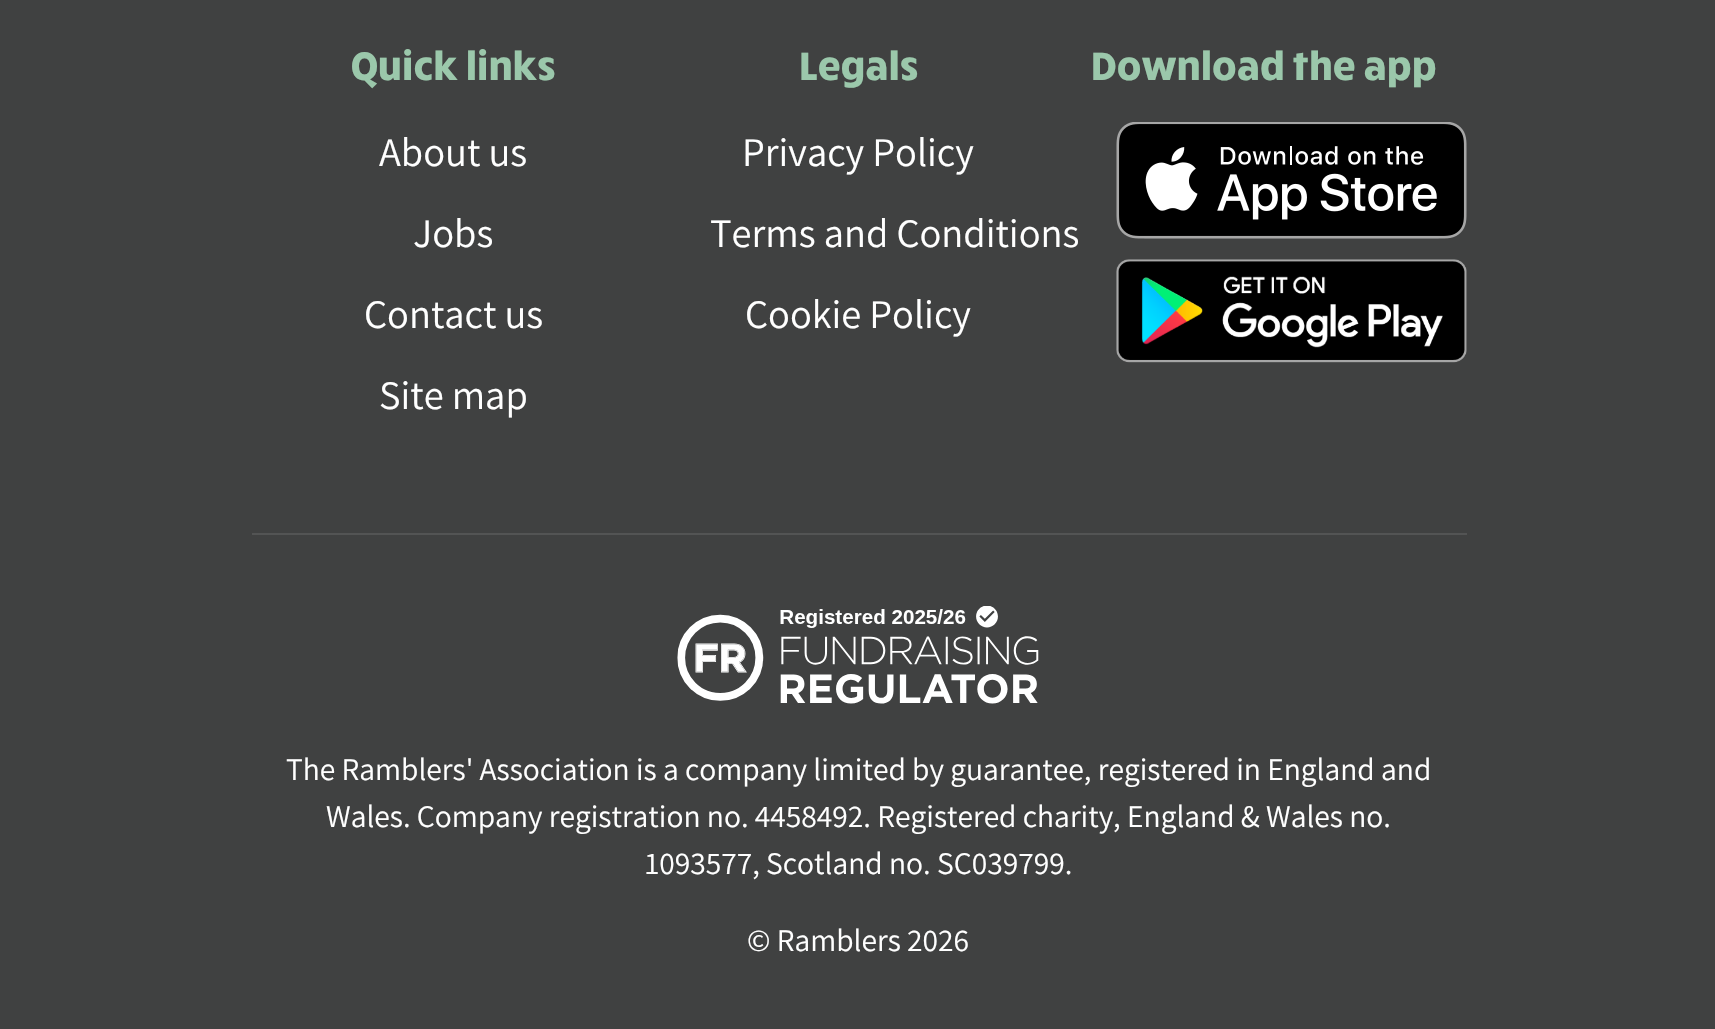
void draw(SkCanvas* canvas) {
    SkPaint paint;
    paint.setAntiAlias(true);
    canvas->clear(0xFF404141);
    SkFont font1(fontMgr->matchFamilyStyle("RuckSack", SkFontStyle::Bold()), 40.5f);
    font1.setSubpixel(true);
    paint.setColor(0xFF9BC8AB);
    canvas->drawString("Quick links", 351, 80, font1, paint);
    SkFont font2(fontMgr->matchFamilyStyle("Assistant", SkFontStyle(200, SkFontStyle::kNormal_Width, SkFontStyle::kUpright_Slant)), 40.5f);
    font2.setSubpixel(true);
    paint.setColor(0xFFFFFFFF);
    canvas->drawString("About us", 379, 166, font2, paint);
    canvas->drawString("Jobs", 413, 247, font2, paint);
    canvas->drawString("Contact us", 364, 328, font2, paint);
    canvas->drawString("Site map", 379, 409, font2, paint);
    paint.setColor(0xFF9BC8AB);
    canvas->drawString("Legals", 799, 80, font1, paint);
    paint.setColor(0xFFFFFFFF);
    canvas->drawString("Privacy Policy", 742, 166, font2, paint);
    canvas->drawString("Terms and Conditions", 710, 247, font2, paint);
    canvas->drawString("Cookie Policy", 745, 328, font2, paint);
    paint.setColor(0xFF9BC8AB);
    canvas->drawString("Download the app", 1091, 80, font1, paint);
    canvas->drawImageRect(SkImages::DeferredFromEncodedData(SkData::MakeFromFileName("img1.png")), SkRect::MakeXYWH(1116, 122, 351, 117), SkSamplingOptions());
    canvas->drawImageRect(SkImages::DeferredFromEncodedData(SkData::MakeFromFileName("img2.png")), SkRect::MakeXYWH(1116, 259, 351, 104), SkSamplingOptions());
    paint.setColor(0xFF535454);
    canvas->drawRect(SkRect::MakeXYWH(252, 533, 1215, 2), paint);
    canvas->drawImageRect(SkImages::DeferredFromEncodedData(SkData::MakeFromFileName("img3.png")), SkRect::MakeXYWH(677, 606, 362, 98), SkSamplingOptions());
    SkFont font3(fontMgr->matchFamilyStyle("Assistant", SkFontStyle(200, SkFontStyle::kNormal_Width, SkFontStyle::kUpright_Slant)), 31.5f);
    font3.setSubpixel(true);
    paint.setColor(0xFFFFFFFF);
    canvas->drawString("The Ramblers' Association is a company limited by guarantee, registered in England and", 286, 780, font3, paint);
    canvas->drawString("Wales. Company registration no. 4458492. Registered charity, England & Wales no.", 326, 827, font3, paint);
    canvas->drawString("1093577, Scotland no. SC039799.", 645, 874, font3, paint);
    canvas->drawString("© Ramblers 2026", 747, 951, font3, paint);
}
